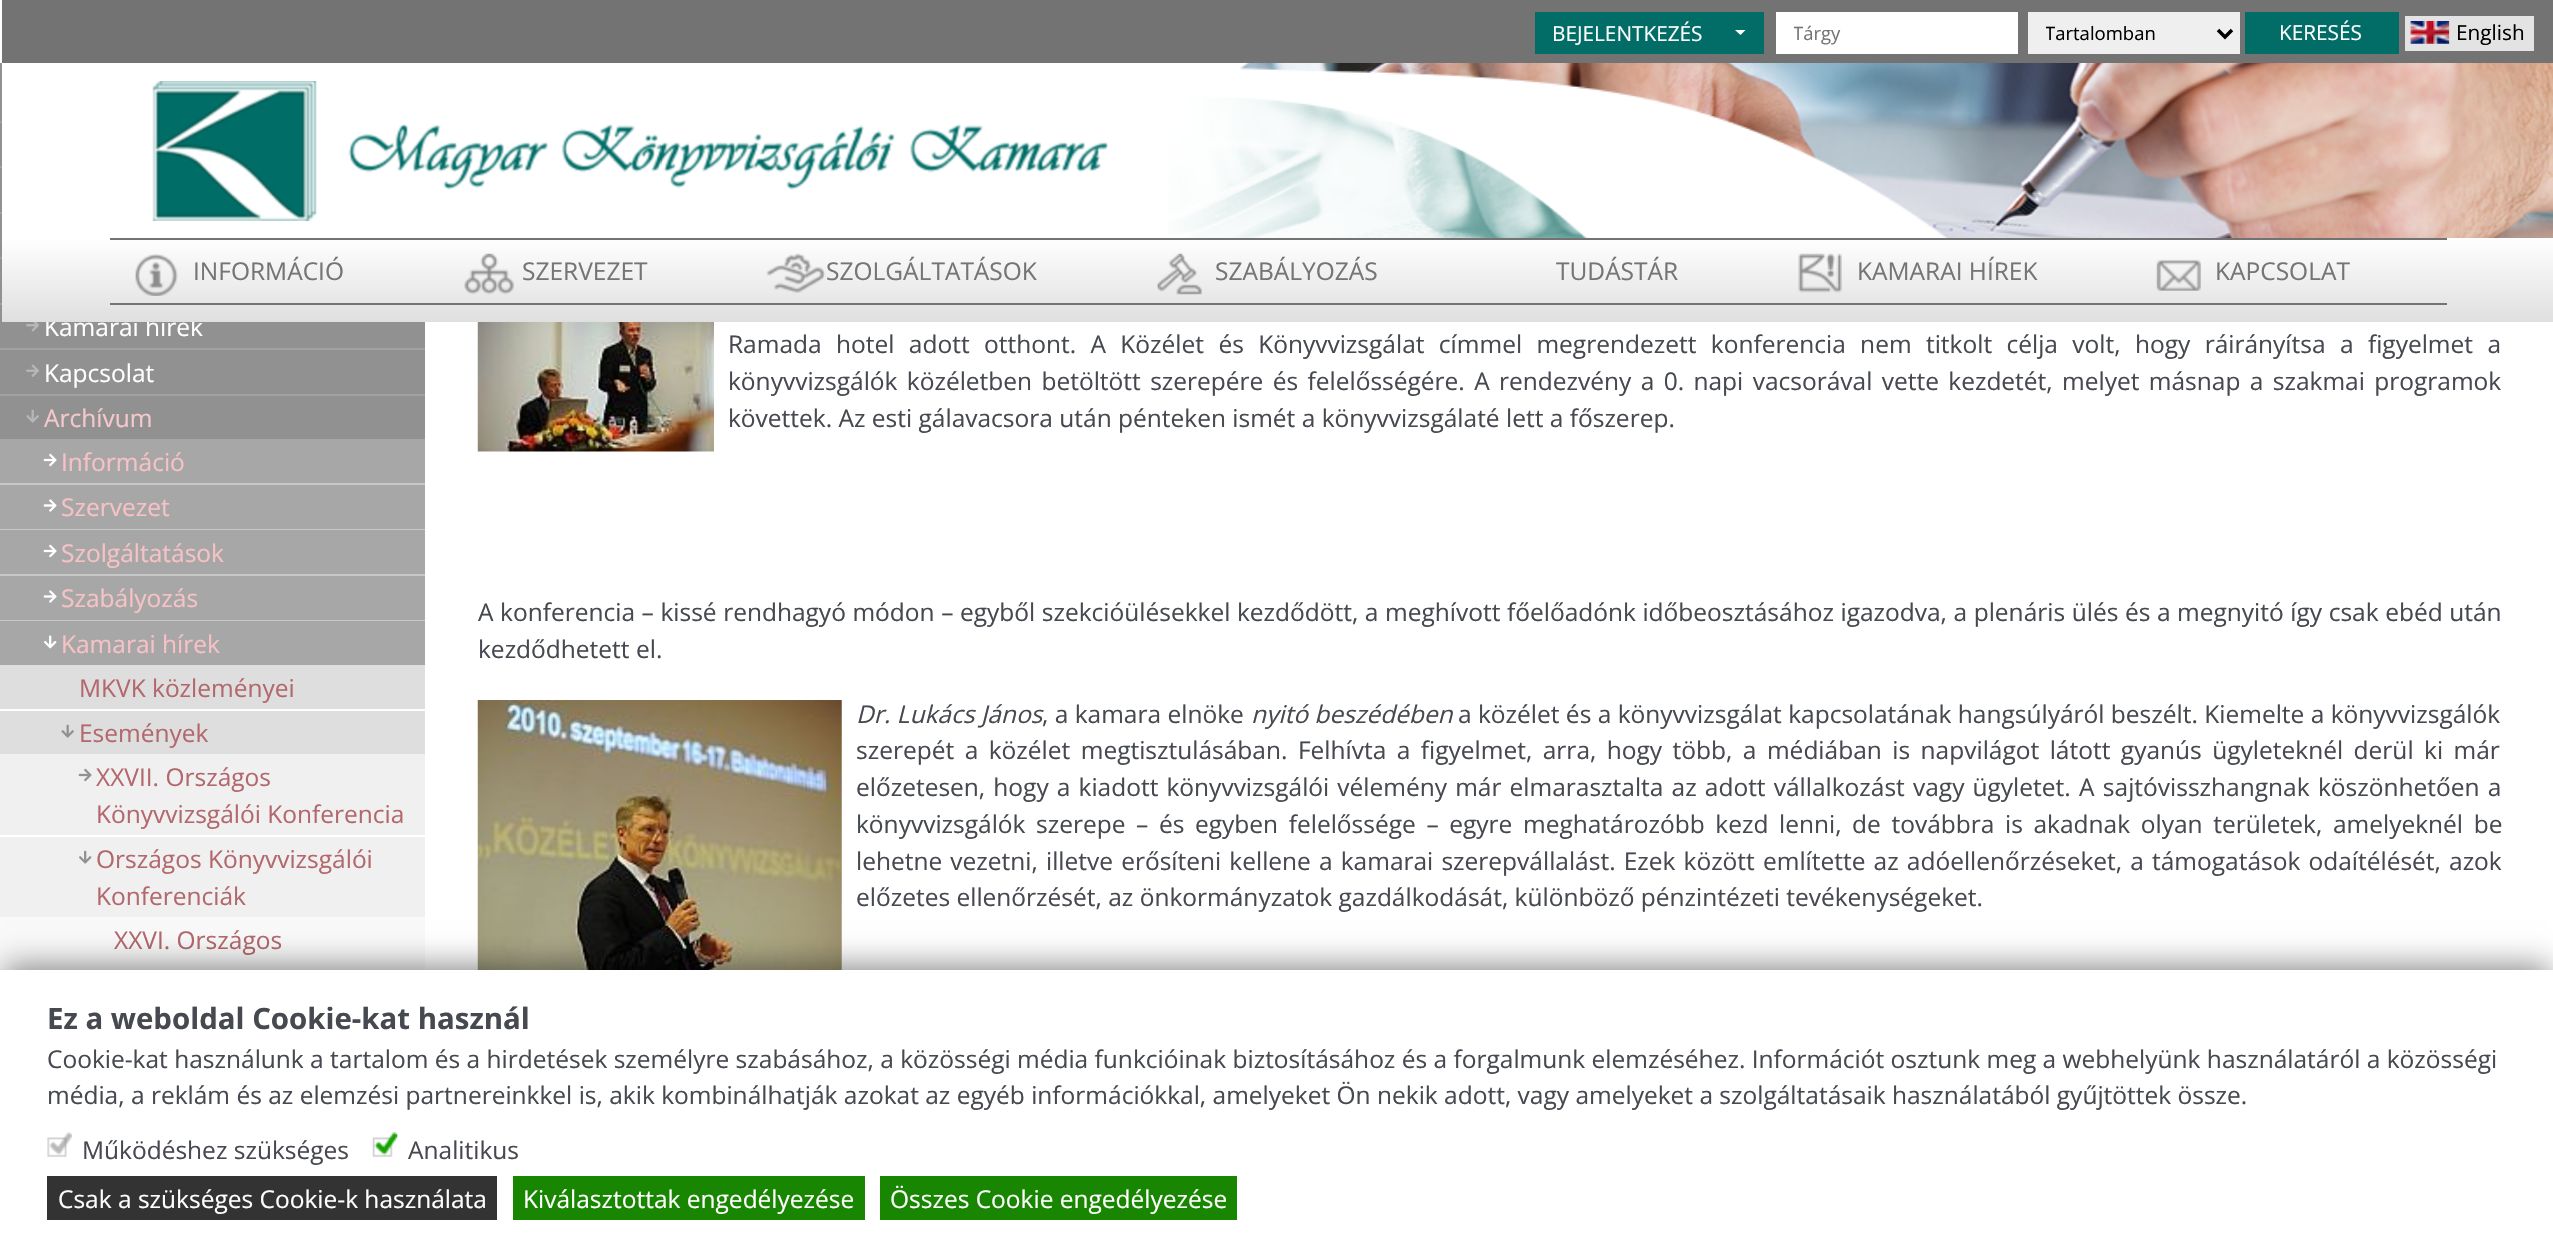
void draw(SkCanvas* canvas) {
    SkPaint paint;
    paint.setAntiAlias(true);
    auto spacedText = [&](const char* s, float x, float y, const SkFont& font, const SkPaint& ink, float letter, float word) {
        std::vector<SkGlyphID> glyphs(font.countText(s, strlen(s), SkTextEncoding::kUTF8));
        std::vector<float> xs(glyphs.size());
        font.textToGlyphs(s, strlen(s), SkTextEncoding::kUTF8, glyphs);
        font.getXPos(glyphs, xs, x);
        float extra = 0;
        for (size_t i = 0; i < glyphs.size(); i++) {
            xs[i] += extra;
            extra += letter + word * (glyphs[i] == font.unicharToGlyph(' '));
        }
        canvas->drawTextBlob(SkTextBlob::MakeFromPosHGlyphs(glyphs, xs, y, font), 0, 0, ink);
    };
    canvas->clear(0xFFFFFFFF);
    paint.setColor(0xFF919191);
    canvas->drawRect(SkRect::MakeXYWH(0, 63, 425, 376), paint);
    paint.setColor(0xFFFFFFFF);
    canvas->drawRect(SkRect::MakeXYWH(2, 63, 423, 175), paint);
    paint.setColor(0xFF737373);
    canvas->drawRect(SkRect::MakeXYWH(2, 0, 2551, 63), paint);
    paint.setColor(0xFF016D66);
    canvas->drawRect(SkRect::MakeXYWH(1535, 12, 229, 42), paint);
    SkFont font1(fontMgr->matchFamilyStyle("Open Sans", SkFontStyle::Normal()), 20.75f);
    font1.setSubpixel(true);
    paint.setColor(0xFFFFFFFF);
    canvas->drawString("BEJELENTKEZÉS", 1552, 41, font1, paint);
    canvas->drawPath(SkPathBuilder().moveTo(1735, 30).lineTo(1745.5f, 30).lineTo(1740.5f, 35).close().detach(), paint);
    canvas->drawRect(SkRect::MakeXYWH(1776, 12, 242, 42), paint);
    canvas->save();
    canvas->clipRect(SkRect::MakeXYWH(1794, 21, 206, 25));
    SkFont font2(fontMgr->matchFamilyStyle("Open Sans", SkFontStyle::Normal()), 18.5f);
    font2.setSubpixel(true);
    paint.setColor(0xFF757575);
    canvas->drawString("Tárgy", 1793, 40, font2, paint);
    canvas->restore();
    paint.setColor(0xFFEFEFEF);
    canvas->drawRect(SkRect::MakeXYWH(2028, 12, 212, 42), paint);
    paint.setStyle(SkPaint::kStroke_Style);
    paint.setStrokeWidth(3.5f);
    paint.setColor(0xFF000000);
    canvas->drawPath(SkPathBuilder().moveTo(2218, 30).lineTo(2225, 37).lineTo(2232, 30).detach(), paint);
    canvas->save();
    canvas->clipRect(SkRect::MakeXYWH(2046, 19, 156, 28));
    paint.setStyle(SkPaint::kFill_Style);
    canvas->drawString("Tartalomban", 2045, 40, font2, paint);
    canvas->restore();
    paint.setColor(0xFF016D66);
    canvas->drawRect(SkRect::MakeXYWH(2245, 12, 154, 42), paint);
    paint.setColor(0xFFFFFFFF);
    canvas->drawString("KERESÉS", 2279, 40, font1, paint);
    paint.setColor(0xFFE3E3E3);
    canvas->drawRect(SkRect::MakeXYWH(2405, 16, 129, 35), paint);
    canvas->drawImageRect(SkImages::DeferredFromEncodedData(SkData::MakeFromFileName("img1.png")), SkRect::MakeXYWH(2410, 21, 40, 23), SkSamplingOptions());
    paint.setColor(0xFF000000);
    canvas->drawString("English", 2456, 40, font1, paint);
    canvas->drawImageRect(SkImages::DeferredFromEncodedData(SkData::MakeFromFileName("img2.png")), SkRect::MakeXYWH(1168, 63, 1385, 175), SkSamplingOptions());
    canvas->drawImageRect(SkImages::DeferredFromEncodedData(SkData::MakeFromFileName("img3.png")), SkRect::MakeXYWH(152, 81, 956, 140), SkSamplingOptions());
    SkFont font3(fontMgr->matchFamilyStyle("Open Sans", SkFontStyle::Normal()), 24.5f);
    font3.setSubpixel(true);
    paint.setColor(0xFFFFFFFF);
    canvas->drawString("Kamarai hírek", 44, 336, font3, paint);
    {
        const SkColor colors[] = {0xFFFFFFFF, 0xFFDFDFDF};
        const float stops[] = {0, 1};
        const SkPoint ends[] = {{1278, 238}, {1278, 322}};
        paint.setShader(SkGradientShader::MakeLinear(ends, colors, stops, 2, SkTileMode::kClamp));
        paint.setAlpha(255);
    }
    canvas->drawRect(SkRect::MakeXYWH(2, 238, 2551, 84), paint);
    paint.setShader(nullptr);
    paint.setColor(0xFF737373);
    canvas->drawRect(SkRect::MakeXYWH(110, 238, 2337, 2), paint);
    canvas->drawRect(SkRect::MakeXYWH(110, 303, 2337, 2), paint);
    canvas->drawImageRect(SkImages::DeferredFromEncodedData(SkData::MakeFromFileName("img4.png")), SkRect::MakeXYWH(135, 254, 43, 42), SkSamplingOptions());
    paint.setColor(0xFF757575);
    canvas->drawString("INFORMÁCIÓ", 193, 280, font3, paint);
    canvas->drawImageRect(SkImages::DeferredFromEncodedData(SkData::MakeFromFileName("img5.png")), SkRect::MakeXYWH(464, 253, 50, 42), SkSamplingOptions());
    canvas->drawString("SZERVEZET", 522, 280, font3, paint);
    canvas->drawImageRect(SkImages::DeferredFromEncodedData(SkData::MakeFromFileName("img6.png")), SkRect::MakeXYWH(766, 253, 60, 40), SkSamplingOptions());
    canvas->drawString("SZOLGÁLTATÁSOK", 826, 280, font3, paint);
    canvas->drawImageRect(SkImages::DeferredFromEncodedData(SkData::MakeFromFileName("img7.png")), SkRect::MakeXYWH(1157, 253, 45, 42), SkSamplingOptions());
    canvas->drawString("SZABÁLYOZÁS", 1215, 280, font3, paint);
    canvas->drawString("TUDÁSTÁR", 1556, 280, font3, paint);
    canvas->drawImageRect(SkImages::DeferredFromEncodedData(SkData::MakeFromFileName("img8.png")), SkRect::MakeXYWH(1798, 253, 44, 40), SkSamplingOptions());
    canvas->drawString("KAMARAI HÍREK", 1857, 280, font3, paint);
    canvas->drawImageRect(SkImages::DeferredFromEncodedData(SkData::MakeFromFileName("img9.png")), SkRect::MakeXYWH(2156, 259, 45, 32), SkSamplingOptions());
    canvas->drawString("KAPCSOLAT", 2215, 280, font3, paint);
    paint.setColor(0xFFA1A1A1);
    canvas->drawRect(SkRect::MakeXYWH(0, 121, 2, 2), paint);
    canvas->drawRect(SkRect::MakeXYWH(0, 166, 2, 2), paint);
    canvas->drawRect(SkRect::MakeXYWH(0, 212, 2, 2), paint);
    canvas->drawRect(SkRect::MakeXYWH(0, 257, 2, 2), paint);
    canvas->drawRect(SkRect::MakeXYWH(0, 303, 2, 2), paint);
    canvas->drawRect(SkRect::MakeXYWH(0, 348, 425, 2), paint);
    canvas->drawImageRect(SkImages::DeferredFromEncodedData(SkData::MakeFromFileName("img10.png")), SkRect::MakeXYWH(26, 322, 13, 10), SkSamplingOptions());
    canvas->drawRect(SkRect::MakeXYWH(0, 394, 425, 2), paint);
    canvas->drawImageRect(SkImages::DeferredFromEncodedData(SkData::MakeFromFileName("img11.png")), SkRect::MakeXYWH(26, 364, 13, 13), SkSamplingOptions());
    paint.setColor(0xFFFFFFFF);
    canvas->drawString("Kapcsolat", 44, 382, font3, paint);
    canvas->drawImageRect(SkImages::DeferredFromEncodedData(SkData::MakeFromFileName("img12.png")), SkRect::MakeXYWH(26, 409, 13, 14), SkSamplingOptions());
    paint.setColor(0xFFF7C8CB);
    canvas->drawString("Archívum", 44, 427, font3, paint);
    paint.setColor(0xFFA7A7A7);
    canvas->drawRect(SkRect::MakeXYWH(0, 439, 425, 44), paint);
    paint.setColor(0xFFC7C7C7);
    canvas->drawRect(SkRect::MakeXYWH(0, 483, 425, 2), paint);
    canvas->drawImageRect(SkImages::DeferredFromEncodedData(SkData::MakeFromFileName("img13.png")), SkRect::MakeXYWH(43, 453, 14, 14), SkSamplingOptions());
    paint.setColor(0xFFF7C2C5);
    canvas->drawString("Információ", 61, 471, font3, paint);
    paint.setColor(0xFFA7A7A7);
    canvas->drawRect(SkRect::MakeXYWH(0, 485, 425, 44), paint);
    paint.setColor(0xFFC7C7C7);
    canvas->drawRect(SkRect::MakeXYWH(0, 529, 425, 1), paint);
    canvas->drawImageRect(SkImages::DeferredFromEncodedData(SkData::MakeFromFileName("img14.png")), SkRect::MakeXYWH(43, 499, 14, 13), SkSamplingOptions());
    paint.setColor(0xFFF7C2C5);
    canvas->drawString("Szervezet", 61, 516, font3, paint);
    paint.setColor(0xFFA7A7A7);
    canvas->drawRect(SkRect::MakeXYWH(0, 530, 425, 44), paint);
    paint.setColor(0xFFC7C7C7);
    canvas->drawRect(SkRect::MakeXYWH(0, 574, 425, 2), paint);
    canvas->drawImageRect(SkImages::DeferredFromEncodedData(SkData::MakeFromFileName("img13.png")), SkRect::MakeXYWH(43, 544, 14, 14), SkSamplingOptions());
    paint.setColor(0xFFF7C2C5);
    canvas->drawString("Szolgáltatások", 61, 562, font3, paint);
    paint.setColor(0xFFA7A7A7);
    canvas->drawRect(SkRect::MakeXYWH(0, 576, 425, 44), paint);
    paint.setColor(0xFFC7C7C7);
    canvas->drawRect(SkRect::MakeXYWH(0, 620, 425, 1), paint);
    canvas->drawImageRect(SkImages::DeferredFromEncodedData(SkData::MakeFromFileName("img14.png")), SkRect::MakeXYWH(43, 590, 14, 13), SkSamplingOptions());
    paint.setColor(0xFFF7C2C5);
    canvas->drawString("Szabályozás", 61, 607, font3, paint);
    paint.setColor(0xFFA7A7A7);
    canvas->drawRect(SkRect::MakeXYWH(0, 621, 425, 44), paint);
    canvas->drawImageRect(SkImages::DeferredFromEncodedData(SkData::MakeFromFileName("img15.png")), SkRect::MakeXYWH(44, 635, 13, 14), SkSamplingOptions());
    paint.setColor(0xFFF7C2C5);
    canvas->drawString("Kamarai hírek", 61, 653, font3, paint);
    paint.setColor(0xFFDEDEDE);
    canvas->drawRect(SkRect::MakeXYWH(0, 665, 425, 44), paint);
    paint.setColor(0xFFB3686D);
    canvas->drawString("MKVK közleményei", 79, 697, font3, paint);
    paint.setColor(0xFFDEDEDE);
    canvas->drawRect(SkRect::MakeXYWH(0, 711, 425, 43), paint);
    canvas->drawImageRect(SkImages::DeferredFromEncodedData(SkData::MakeFromFileName("img16.png")), SkRect::MakeXYWH(61, 724, 13, 14), SkSamplingOptions());
    paint.setColor(0xFFB3686D);
    canvas->drawString("Események", 79, 742, font3, paint);
    paint.setColor(0xFFF0F0F0);
    canvas->drawRect(SkRect::MakeXYWH(0, 754, 425, 81), paint);
    canvas->drawImageRect(SkImages::DeferredFromEncodedData(SkData::MakeFromFileName("img17.png")), SkRect::MakeXYWH(78, 768, 14, 14), SkSamplingOptions());
    paint.setColor(0xFFB3686D);
    canvas->drawString("XXVII. Országos", 96, 786, font3, paint);
    canvas->drawString("Könyvvizsgálói Konferencia", 96, 823, font3, paint);
    paint.setColor(0xFFF0F0F0);
    canvas->drawRect(SkRect::MakeXYWH(0, 837, 425, 80), paint);
    canvas->drawImageRect(SkImages::DeferredFromEncodedData(SkData::MakeFromFileName("img18.png")), SkRect::MakeXYWH(79, 850, 13, 14), SkSamplingOptions());
    paint.setColor(0xFFB3686D);
    canvas->drawString("Országos Könyvvizsgálói", 96, 868, font3, paint);
    canvas->drawString("Konferenciák", 96, 905, font3, paint);
    paint.setColor(0xFFF9F9F9);
    canvas->drawRect(SkRect::MakeXYWH(0, 917, 425, 53), paint);
    paint.setColor(0xFFB3686D);
    canvas->drawString("XXVI. Országos", 114, 949, font3, paint);
    canvas->drawImageRect(SkImages::DeferredFromEncodedData(SkData::MakeFromFileName("img19.png")), SkRect::MakeXYWH(477, 322, 237, 130), SkSamplingOptions());
    paint.setColor(0xFF46494F);
    spacedText("Ramada hotel adott otthont. A Közélet és Könyvvizsgálat címmel megrendezett konferencia nem titkolt célja volt, hogy ráirányítsa a figyelmet a", 728, 353, font3, paint, 0, 8);
    spacedText("könyvvizsgálók közéletben betöltött szerepére és felelősségére. A rendezvény a 0. napi vacsorával vette kezdetét, melyet másnap a szakmai programok", 728, 390, font3, paint, 0, 3);
    canvas->drawString("követtek. Az esti gálavacsora után pénteken ismét a könyvvizsgálaté lett a főszerep.", 728, 427, font3, paint);
    spacedText("A konferencia – kissé rendhagyó módon – egyből szekcióülésekkel kezdődött, a meghívott főelőadónk időbeosztásához igazodva, a plenáris ülés és a megnyitó így csak ebéd után", 478, 621, font3, paint, 0, 0.2f);
    canvas->drawString("kezdődhetett el.", 478, 658, font3, paint);
    canvas->drawImageRect(SkImages::DeferredFromEncodedData(SkData::MakeFromFileName("img20.png")), SkRect::MakeXYWH(477, 700, 365, 270), SkSamplingOptions());
    SkFont font4(fontMgr->matchFamilyStyle("Open Sans", SkFontStyle::Italic()), 24.5f);
    font4.setSubpixel(true);
    canvas->drawString("Dr. Lukács János", 856, 723, font4, paint);
    canvas->drawString(", a kamara elnöke", 1042, 723, font3, paint);
    canvas->drawString("nyitó beszédében", 1251, 723, font4, paint);
    canvas->drawString("a közélet és a könyvvizsgálat kapcsolatának hangsúlyáról beszélt. Kiemelte a könyvvizsgálók", 1458, 723, font3, paint);
    spacedText("szerepét a közélet megtisztulásában. Felhívta a figyelmet, arra, hogy több, a médiában is napvilágot látott gyanús ügyleteknél derül ki már", 856, 759, font3, paint, 0, 4.1f);
    spacedText("előzetesen, hogy a kiadott könyvvizsgálói vélemény már elmarasztalta az adott vállalkozást vagy ügyletet.", 856, 796, font3, paint, 0, 1.75f);
    spacedText("A sajtóvisszhangnak köszönhetően a", 2079, 796, font3, paint, 0, 2);
    spacedText("könyvvizsgálók szerepe – és egyben felelőssége – egyre meghatározóbb kezd lenni, de továbbra is akadnak olyan területek, amelyeknél be", 856, 833, font3, paint, 0, 4.25f);
    spacedText("lehetne vezetni, illetve erősíteni kellene a kamarai szerepvállalást. Ezek között említette az adóellenőrzéseket, a támogatások odaítélését, azok", 856, 870, font3, paint, 0, 1.75f);
    canvas->drawString("előzetes ellenőrzését, az önkormányzatok gazdálkodását, különböző pénzintézeti tevékenységeket.", 856, 906, font3, paint);
    paint.setColor(0x78000000);
    paint.setMaskFilter(SkMaskFilter::MakeBlur(kNormal_SkBlurStyle, 15));
    canvas->drawRect(SkRect::MakeXYWH(4, 966, 2546, 270), paint);
    paint.setMaskFilter(nullptr);
    paint.setColor(0xFFFFFFFF);
    canvas->drawRect(SkRect::MakeXYWH(0, 970, 2553, 275), paint);
    SkFont font5(fontMgr->matchFamilyStyle("Open Sans", SkFontStyle::Bold()), 29.4f);
    font5.setSubpixel(true);
    paint.setColor(0xFF46494F);
    canvas->drawString("Ez a weboldal Cookie-kat használ", 47, 1029, font5, paint);
    canvas->drawString("Cookie-kat használunk a tartalom és a hirdetések személyre szabásához, a közösségi média funkcióinak biztosításához és a forgalmunk elemzéséhez. Információt osztunk meg a webhelyünk használatáról a közösségi", 47, 1068, font3, paint);
    canvas->drawString("média, a reklám és az elemzési partnereinkkel is, akik kombinálhatják azokat az egyéb információkkal, amelyeket Ön nekik adott, vagy amelyeket a szolgáltatásaik használatából gyűjtöttek össze.", 47, 1104, font3, paint);
    canvas->drawImageRect(SkImages::DeferredFromEncodedData(SkData::MakeFromFileName("img21.png")), SkRect::MakeXYWH(47, 1132, 25, 25), SkSamplingOptions());
    canvas->drawString("Működéshez szükséges", 82, 1159, font3, paint);
    canvas->drawImageRect(SkImages::DeferredFromEncodedData(SkData::MakeFromFileName("img22.png")), SkRect::MakeXYWH(372, 1132, 26, 25), SkSamplingOptions());
    canvas->drawString("Analitikus", 408, 1159, font3, paint);
    paint.setColor(0xFF333333);
    canvas->drawRect(SkRect::MakeXYWH(47, 1176, 450, 44), paint);
    paint.setColor(0xFFFFFFFF);
    canvas->drawString("Csak a szükséges Cookie-k használata", 58, 1208, font3, paint);
    paint.setColor(0xFF188600);
    canvas->drawRect(SkRect::MakeXYWH(513, 1176, 352, 44), paint);
    paint.setColor(0xFFFFFFFF);
    canvas->drawString("Kiválasztottak engedélyezése", 523, 1208, font3, paint);
    paint.setColor(0xFF188600);
    canvas->drawRect(SkRect::MakeXYWH(880, 1176, 357, 44), paint);
    paint.setColor(0xFFFFFFFF);
    canvas->drawString("Összes Cookie engedélyezése", 890, 1208, font3, paint);
}
